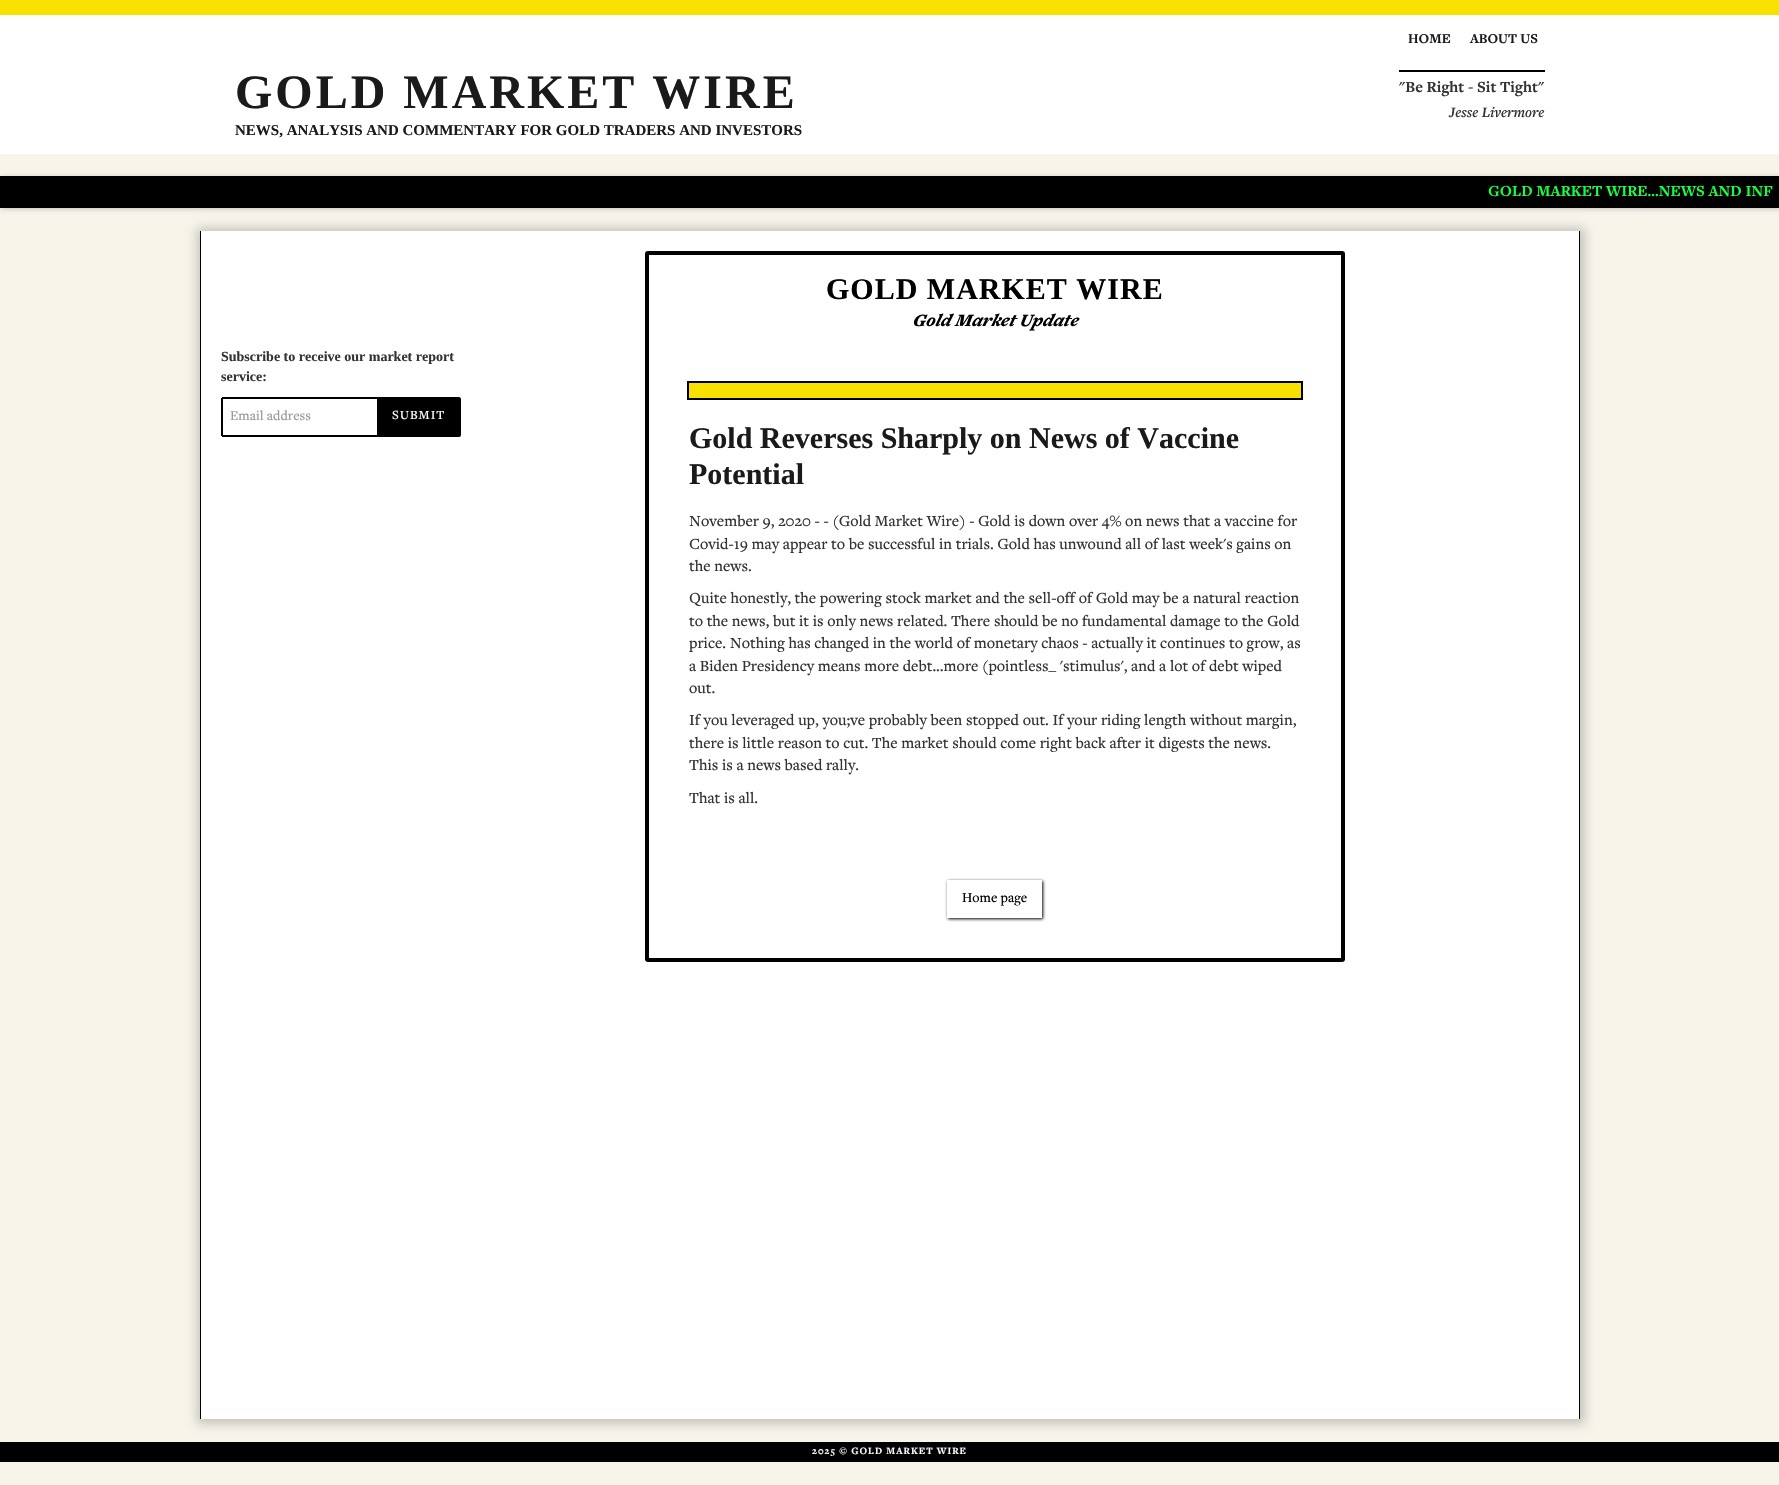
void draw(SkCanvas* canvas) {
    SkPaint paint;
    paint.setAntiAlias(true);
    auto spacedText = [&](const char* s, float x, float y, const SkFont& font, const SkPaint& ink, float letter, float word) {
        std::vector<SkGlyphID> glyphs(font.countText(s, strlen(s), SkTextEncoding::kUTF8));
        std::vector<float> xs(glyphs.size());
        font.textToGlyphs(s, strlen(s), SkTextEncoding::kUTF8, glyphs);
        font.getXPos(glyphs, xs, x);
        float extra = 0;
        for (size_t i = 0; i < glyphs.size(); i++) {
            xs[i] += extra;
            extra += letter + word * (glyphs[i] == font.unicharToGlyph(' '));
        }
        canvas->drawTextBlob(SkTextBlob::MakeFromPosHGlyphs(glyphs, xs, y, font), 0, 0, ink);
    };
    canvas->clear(0xFFF7F4EA);
    paint.setColor(0xFFFFFFFF);
    canvas->drawRect(SkRect::MakeXYWH(0, 15, 1779, 139), paint);
    paint.setColor(0xFFF8E100);
    canvas->drawRect(SkRect::MakeXYWH(0, 0, 1779, 15), paint);
    SkFont font1(fontMgr->matchFamilyStyle("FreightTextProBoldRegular", SkFontStyle::Bold()), 14);
    font1.setSubpixel(true);
    paint.setColor(0xFF1A1A1A);
    canvas->drawString("HOME", 1408, 43, font1, paint);
    canvas->drawString("ABOUT US", 1470, 43, font1, paint);
    SkFont font2(fontMgr->matchFamilyStyle("Liberation Serif", SkFontStyle::Bold()), 48);
    font2.setSubpixel(true);
    spacedText("GOLD MARKET WIRE", 235, 108, font2, paint, 3, 0);
    SkFont font3(fontMgr->matchFamilyStyle("Liberation Serif", SkFontStyle::Bold()), 15);
    font3.setSubpixel(true);
    canvas->drawString("NEWS, ANALYSIS AND COMMENTARY FOR GOLD TRADERS AND INVESTORS", 235, 135, font3, paint);
    paint.setColor(0xFF000000);
    canvas->drawRect(SkRect::MakeXYWH(1399, 70, 146, 2), paint);
    SkFont font4(fontMgr->matchFamilyStyle("FreightTextProBoldRegular", SkFontStyle::Bold()), 16);
    font4.setSubpixel(true);
    paint.setColor(0xFF333333);
    canvas->drawString("\"Be Right - Sit Tight\"", 1399, 92, font4, paint);
    SkFont font5(fontMgr->matchFamilyStyle("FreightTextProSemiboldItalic", SkFontStyle(600, SkFontStyle::kNormal_Width, SkFontStyle::kItalic_Slant)), 15);
    font5.setSubpixel(true);
    canvas->drawString("Jesse Livermore", 1449, 117, font5, paint);
    paint.setColor(0x33000000);
    paint.setMaskFilter(SkMaskFilter::MakeBlur(kNormal_SkBlurStyle, 2.5f));
    canvas->drawRect(SkRect::MakeXYWH(1, 177, 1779, 32), paint);
    paint.setMaskFilter(nullptr);
    paint.setColor(0xFF000000);
    canvas->drawRect(SkRect::MakeXYWH(0, 176, 1779, 32), paint);
    paint.setColor(0xFF18FD42);
    canvas->drawString("GOLD MARKET WIRE...NEWS AND INF", 1488, 196, font4, paint);
    paint.setColor(0x33000000);
    paint.setMaskFilter(SkMaskFilter::MakeBlur(kNormal_SkBlurStyle, 5));
    canvas->drawRect(SkRect::MakeXYWH(197, 228, 1388, 1196), paint);
    paint.setMaskFilter(nullptr);
    paint.setColor(0xFFFFFFFF);
    canvas->drawRect(SkRect::MakeXYWH(201, 231, 1378, 1188), paint);
    paint.setColor(0xFF000000);
    canvas->drawRect(SkRect::MakeXYWH(1579, 231, 1, 1188), paint);
    canvas->drawRect(SkRect::MakeXYWH(200, 231, 1, 1188), paint);
    SkFont font6(fontMgr->matchFamilyStyle("Liberation Serif", SkFontStyle::Bold()), 14);
    font6.setSubpixel(true);
    paint.setColor(0xFF333333);
    canvas->drawString("Subscribe to receive our market report", 221, 361, font6, paint);
    canvas->drawString("service:", 221, 381, font6, paint);
    paint.setColor(0xFF000000);
    canvas->drawRect(SkRect::MakeXYWH(222, 397, 155, 2), paint);
    canvas->drawRect(SkRect::MakeXYWH(222, 435, 155, 2), paint);
    canvas->drawRect(SkRect::MakeXYWH(221, 398, 2, 38), paint);
    SkFont font7(fontMgr->matchFamilyStyle("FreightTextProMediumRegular", SkFontStyle(500, SkFontStyle::kNormal_Width, SkFontStyle::kUpright_Slant)), 14);
    font7.setSubpixel(true);
    paint.setColor(0xFF999999);
    canvas->drawString("Email address", 230, 420, font7, paint);
    paint.setColor(0xFF000000);
    canvas->drawPath(SkPathBuilder().moveTo(377, 397).lineTo(459, 397).cubicTo(460, 397, 461, 398, 461, 399).lineTo(461, 435).cubicTo(461, 436, 460, 437, 459, 437).lineTo(377, 437).close().detach(), paint);
    SkFont font8(fontMgr->matchFamilyStyle("FreightTextProMediumRegular", SkFontStyle(500, SkFontStyle::kNormal_Width, SkFontStyle::kUpright_Slant)), 13);
    font8.setSubpixel(true);
    paint.setColor(0xFFFFFFFF);
    spacedText("SUBMIT", 392, 419, font8, paint, 1, 0);
    paint.setStyle(SkPaint::kStroke_Style);
    paint.setStrokeWidth(4);
    paint.setColor(0xFF000000);
    canvas->drawRoundRect(SkRect::MakeXYWH(647, 253, 696, 707), 1, 1, paint);
    SkFont font9(fontMgr->matchFamilyStyle("Liberation Serif", SkFontStyle::Bold()), 30);
    font9.setSubpixel(true);
    paint.setStyle(SkPaint::kFill_Style);
    spacedText("GOLD MARKET WIRE", 826, 299, font9, paint, 1, 0);
    SkFont font10(fontMgr->matchFamilyStyle("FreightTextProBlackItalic", SkFontStyle(900, SkFontStyle::kNormal_Width, SkFontStyle::kItalic_Slant)), 18);
    font10.setSubpixel(true);
    canvas->drawString("Gold Market Update", 912, 326, font10, paint);
    paint.setStyle(SkPaint::kStroke_Style);
    paint.setStrokeWidth(2);
    canvas->drawRect(SkRect::MakeXYWH(688, 382, 614, 17), paint);
    paint.setStyle(SkPaint::kFill_Style);
    paint.setColor(0xFFF8E100);
    canvas->drawRect(SkRect::MakeXYWH(689, 383, 612, 15), paint);
    paint.setColor(0xFF1A1A1A);
    canvas->drawString("Gold Reverses Sharply on News of Vaccine", 689, 448, font9, paint);
    canvas->drawString("Potential", 689, 484, font9, paint);
    SkFont font11(fontMgr->matchFamilyStyle("FreightTextProMediumRegular", SkFontStyle(500, SkFontStyle::kNormal_Width, SkFontStyle::kUpright_Slant)), 16);
    font11.setSubpixel(true);
    paint.setColor(0xFF333333);
    canvas->drawString("November 9, 2020 - - (Gold Market Wire) - Gold is down over 4% on news that a vaccine for", 689, 526, font11, paint);
    canvas->drawString("Covid-19 may appear to be successful in trials. Gold has unwound all of last week's gains on", 689, 549, font11, paint);
    canvas->drawString("the news.", 689, 571, font11, paint);
    canvas->drawString("Quite honestly, the powering stock market and the sell-off of Gold may be a natural reaction", 689, 603, font11, paint);
    canvas->drawString("to the news, but it is only news related. There should be no fundamental damage to the Gold", 689, 626, font11, paint);
    canvas->drawString("price. Nothing has changed in the world of monetary chaos - actually it continues to grow, as", 689, 648, font11, paint);
    canvas->drawString("a Biden Presidency means more debt...more (pointless_ 'stimulus', and a lot of debt wiped", 689, 671, font11, paint);
    canvas->drawString("out.", 689, 693, font11, paint);
    canvas->drawString("If you leveraged up, you;ve probably been stopped out. If your riding length without margin,", 689, 725, font11, paint);
    canvas->drawString("there is little reason to cut. The market should come right back after it digests the news.", 689, 748, font11, paint);
    canvas->drawString("This is a news based rally.", 689, 770, font11, paint);
    canvas->drawString("That is all.", 689, 803, font11, paint);
    canvas->save();
    canvas->clipPath(SkPathBuilder(SkPathFillType::kEvenOdd).moveTo(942, 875).lineTo(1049, 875).lineTo(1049, 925).lineTo(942, 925).close().moveTo(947, 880).lineTo(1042, 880).lineTo(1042, 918).lineTo(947, 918).close().detach(), true);
    paint.setColor(0xFF000000);
    paint.setMaskFilter(SkMaskFilter::MakeBlur(kNormal_SkBlurStyle, 1.5f));
    canvas->drawRect(SkRect::MakeXYWH(948, 881, 95, 38), paint);
    paint.setMaskFilter(nullptr);
    canvas->restore();
    canvas->drawString("Home page", 962, 902, font7, paint);
    canvas->drawRect(SkRect::MakeXYWH(0, 1442, 1779, 20), paint);
    SkFont font12(fontMgr->matchFamilyStyle("FreightTextProBoldRegular", SkFontStyle::Bold()), 10);
    font12.setSubpixel(true);
    paint.setColor(0xFFFFFFFF);
    spacedText("2025 © GOLD MARKET WIRE", 812, 1454, font12, paint, 1, 0);
}
